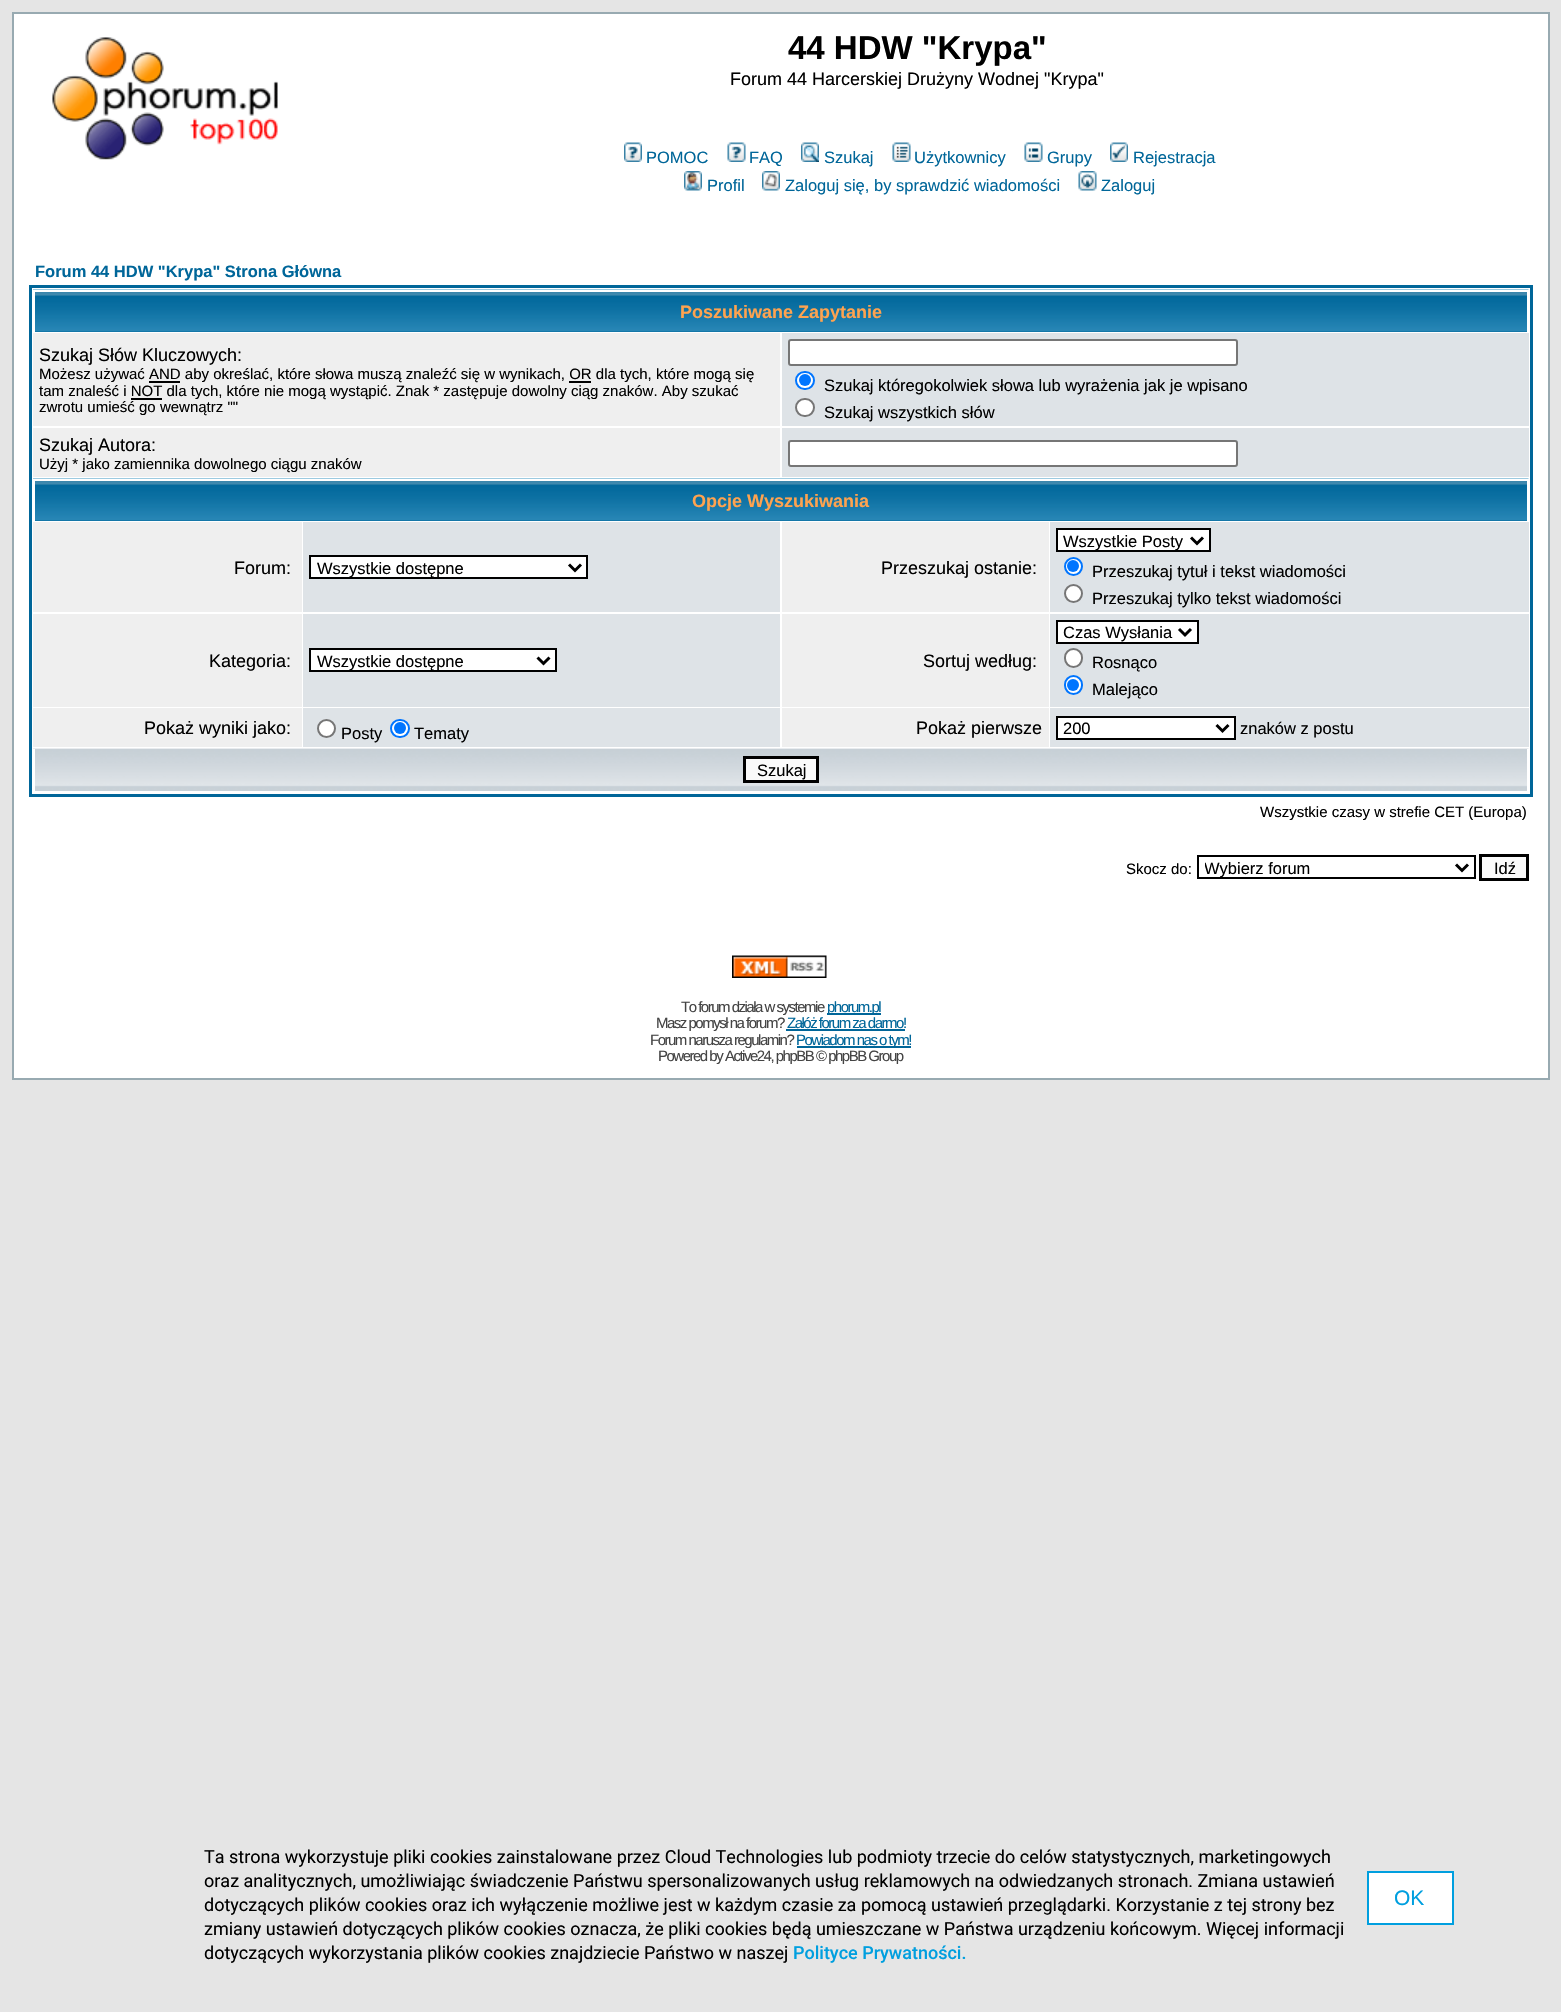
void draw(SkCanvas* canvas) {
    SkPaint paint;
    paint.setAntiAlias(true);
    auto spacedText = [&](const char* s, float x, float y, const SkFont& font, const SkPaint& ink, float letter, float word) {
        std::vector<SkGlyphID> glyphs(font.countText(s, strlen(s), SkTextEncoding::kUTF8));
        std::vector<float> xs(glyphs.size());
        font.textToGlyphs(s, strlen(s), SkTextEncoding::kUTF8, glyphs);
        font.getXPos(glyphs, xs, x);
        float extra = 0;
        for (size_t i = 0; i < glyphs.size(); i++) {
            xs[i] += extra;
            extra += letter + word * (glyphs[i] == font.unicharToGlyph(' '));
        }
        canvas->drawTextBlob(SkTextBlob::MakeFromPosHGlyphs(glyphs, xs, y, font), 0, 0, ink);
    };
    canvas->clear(0xFFE5E5E5);
    paint.setColor(0xFFFFFFFF);
    canvas->drawRect(SkRect::MakeXYWH(13, 13, 1536, 1066), paint);
    paint.setStyle(SkPaint::kStroke_Style);
    paint.setStrokeWidth(2);
    paint.setColor(0xFF98AAB1);
    canvas->drawRect(SkRect::MakeXYWH(13, 13, 1536, 1066), paint);
    canvas->drawImageRect(SkImages::DeferredFromEncodedData(SkData::MakeFromFileName("img1.png")), SkRect::MakeXYWH(52, 37, 226, 123), SkSamplingOptions());
    SkFont font1(fontMgr->matchFamilyStyle("Liberation Sans", SkFontStyle::Bold()), 33);
    font1.setSubpixel(true);
    paint.setStyle(SkPaint::kFill_Style);
    paint.setColor(0xFF000000);
    canvas->drawString("44 HDW \"Krypa\"", 788, 59, font1, paint);
    SkFont font2(fontMgr->matchFamilyStyle("Liberation Sans", SkFontStyle::Normal()), 18);
    font2.setSubpixel(true);
    canvas->drawString("Forum 44 Harcerskiej Drużyny Wodnej \"Krypa\"", 730, 85, font2, paint);
    canvas->drawImageRect(SkImages::DeferredFromEncodedData(SkData::MakeFromFileName("img2.png")), SkRect::MakeXYWH(624, 142, 18, 20), SkSamplingOptions());
    SkFont font3(fontMgr->matchFamilyStyle("Liberation Sans", SkFontStyle::Normal()), 16.5f);
    font3.setSubpixel(true);
    paint.setColor(0xFF006699);
    canvas->drawString("POMOC", 646, 163, font3, paint);
    canvas->drawImageRect(SkImages::DeferredFromEncodedData(SkData::MakeFromFileName("img3.png")), SkRect::MakeXYWH(727, 142, 19, 20), SkSamplingOptions());
    canvas->drawString("FAQ", 749, 163, font3, paint);
    canvas->drawImageRect(SkImages::DeferredFromEncodedData(SkData::MakeFromFileName("img4.png")), SkRect::MakeXYWH(801, 142, 18, 20), SkSamplingOptions());
    canvas->drawString("Szukaj", 824, 163, font3, paint);
    canvas->drawImageRect(SkImages::DeferredFromEncodedData(SkData::MakeFromFileName("img5.png")), SkRect::MakeXYWH(892, 142, 19, 20), SkSamplingOptions());
    canvas->drawString("Użytkownicy", 914, 163, font3, paint);
    canvas->drawImageRect(SkImages::DeferredFromEncodedData(SkData::MakeFromFileName("img6.png")), SkRect::MakeXYWH(1024, 142, 19, 20), SkSamplingOptions());
    canvas->drawString("Grupy", 1047, 163, font3, paint);
    canvas->drawImageRect(SkImages::DeferredFromEncodedData(SkData::MakeFromFileName("img7.png")), SkRect::MakeXYWH(1110, 142, 18, 20), SkSamplingOptions());
    canvas->drawString("Rejestracja", 1133, 163, font3, paint);
    canvas->drawImageRect(SkImages::DeferredFromEncodedData(SkData::MakeFromFileName("img8.png")), SkRect::MakeXYWH(684, 171, 18, 20), SkSamplingOptions());
    canvas->drawString("Profil", 707, 191, font3, paint);
    canvas->drawImageRect(SkImages::DeferredFromEncodedData(SkData::MakeFromFileName("img9.png")), SkRect::MakeXYWH(762, 171, 18, 20), SkSamplingOptions());
    canvas->drawString("Zaloguj się, by sprawdzić wiadomości", 785, 191, font3, paint);
    canvas->drawImageRect(SkImages::DeferredFromEncodedData(SkData::MakeFromFileName("img10.png")), SkRect::MakeXYWH(1078, 171, 19, 20), SkSamplingOptions());
    canvas->drawString("Zaloguj", 1101, 191, font3, paint);
    SkFont font4(fontMgr->matchFamilyStyle("Liberation Sans", SkFontStyle::Bold()), 16.5f);
    font4.setSubpixel(true);
    canvas->drawString("Forum 44 HDW \"Krypa\" Strona Główna", 35, 277, font4, paint);
    paint.setStyle(SkPaint::kStroke_Style);
    paint.setStrokeWidth(3);
    canvas->drawRect(SkRect::MakeXYWH(30.5f, 286.5f, 1501, 509), paint);
    paint.setStyle(SkPaint::kFill_Style);
    canvas->drawRect(SkRect::MakeXYWH(35, 331, 1492, 1), paint);
    canvas->drawImageRect(SkImages::DeferredFromEncodedData(SkData::MakeFromFileName("img11.png")), SkRect::MakeXYWH(33, 289, 1496, 43), SkSamplingOptions());
    paint.setColor(0xFFFFFFFF);
    canvas->drawRect(SkRect::MakeXYWH(33, 290, 1496, 2), paint);
    canvas->drawRect(SkRect::MakeXYWH(1527, 290, 2, 42), paint);
    canvas->drawRect(SkRect::MakeXYWH(33, 290, 2, 42), paint);
    SkFont font5(fontMgr->matchFamilyStyle("Liberation Sans", SkFontStyle::Bold()), 18);
    font5.setSubpixel(true);
    paint.setColor(0xFFFFA34F);
    canvas->drawString("Poszukiwane Zapytanie", 680, 318, font5, paint);
    paint.setColor(0xFFEFEFEF);
    canvas->drawRect(SkRect::MakeXYWH(33, 333, 747, 93), paint);
    paint.setColor(0xFF000000);
    canvas->drawString("Szukaj Słów Kluczowych:", 39, 361, font2, paint);
    SkFont font6(fontMgr->matchFamilyStyle("Liberation Sans", SkFontStyle::Normal()), 15);
    font6.setSubpixel(true);
    canvas->drawString("Możesz używać AND aby określać, które słowa muszą znaleźć się w wynikach, OR dla tych, które mogą się", 39, 379, font6, paint);
    canvas->drawRect(SkRect::MakeXYWH(149, 381, 31, 2), paint);
    canvas->drawRect(SkRect::MakeXYWH(569, 381, 22, 2), paint);
    canvas->drawString("tam znaleść i NOT dla tych, które nie mogą wystąpić. Znak * zastępuje dowolny ciąg znaków. Aby szukać", 39, 396, font6, paint);
    canvas->drawRect(SkRect::MakeXYWH(131, 398, 31, 2), paint);
    canvas->drawString("zwrotu umieść go wewnątrz \"\"", 39, 412, font6, paint);
    paint.setColor(0xFFDEE3E7);
    canvas->drawRect(SkRect::MakeXYWH(782, 333, 747, 93), paint);
    paint.setColor(0xFFFFFFFF);
    canvas->drawRoundRect(SkRect::MakeXYWH(789, 340, 448, 25), 2, 2, paint);
    paint.setStyle(SkPaint::kStroke_Style);
    paint.setStrokeWidth(2);
    paint.setColor(0xFF767676);
    canvas->drawRoundRect(SkRect::MakeXYWH(789, 340, 448, 25), 2, 2, paint);
    paint.setStyle(SkPaint::kFill_Style);
    paint.setColor(0xFFFFFFFF);
    canvas->drawRoundRect(SkRect::MakeXYWH(796, 372, 18, 17), 8.5f, 8.5f, paint);
    paint.setStyle(SkPaint::kStroke_Style);
    paint.setColor(0xFF0075FF);
    canvas->drawRoundRect(SkRect::MakeXYWH(796, 372, 18, 17), 8.5f, 8.5f, paint);
    paint.setStyle(SkPaint::kFill_Style);
    canvas->drawCircle(805, 380, 6, paint);
    paint.setColor(0xFF000000);
    canvas->drawString("Szukaj któregokolwiek słowa lub wyrażenia jak je wpisano", 824, 391, font3, paint);
    paint.setColor(0xFFFFFFFF);
    canvas->drawRoundRect(SkRect::MakeXYWH(796, 399, 18, 17), 8.5f, 8.5f, paint);
    paint.setStyle(SkPaint::kStroke_Style);
    paint.setColor(0xFF767676);
    canvas->drawRoundRect(SkRect::MakeXYWH(796, 399, 18, 17), 8.5f, 8.5f, paint);
    paint.setStyle(SkPaint::kFill_Style);
    paint.setColor(0xFF000000);
    canvas->drawString("Szukaj wszystkich słów", 824, 418, font3, paint);
    paint.setColor(0xFFEFEFEF);
    canvas->drawRect(SkRect::MakeXYWH(33, 428, 747, 49), paint);
    paint.setColor(0xFF000000);
    canvas->drawString("Szukaj Autora:", 39, 451, font2, paint);
    canvas->drawString("Użyj * jako zamiennika dowolnego ciągu znaków", 39, 469, font6, paint);
    paint.setColor(0xFFDEE3E7);
    canvas->drawRect(SkRect::MakeXYWH(782, 428, 747, 49), paint);
    paint.setColor(0xFFFFFFFF);
    canvas->drawRoundRect(SkRect::MakeXYWH(789, 441, 448, 25), 2, 2, paint);
    paint.setStyle(SkPaint::kStroke_Style);
    paint.setColor(0xFF767676);
    canvas->drawRoundRect(SkRect::MakeXYWH(789, 441, 448, 25), 2, 2, paint);
    paint.setStyle(SkPaint::kFill_Style);
    paint.setColor(0xFF006699);
    canvas->drawRect(SkRect::MakeXYWH(35, 520, 1492, 1), paint);
    canvas->drawImageRect(SkImages::DeferredFromEncodedData(SkData::MakeFromFileName("img11.png")), SkRect::MakeXYWH(33, 478, 1496, 43), SkSamplingOptions());
    paint.setColor(0xFFFFFFFF);
    canvas->drawRect(SkRect::MakeXYWH(33, 479, 1496, 2), paint);
    canvas->drawRect(SkRect::MakeXYWH(1527, 479, 2, 42), paint);
    canvas->drawRect(SkRect::MakeXYWH(33, 479, 2, 42), paint);
    paint.setColor(0xFFFFA34F);
    canvas->drawString("Opcje Wyszukiwania", 692, 507, font5, paint);
    paint.setColor(0xFFEFEFEF);
    canvas->drawRect(SkRect::MakeXYWH(33, 522, 269, 90), paint);
    paint.setColor(0xFF000000);
    canvas->drawString("Forum:", 234, 574, font2, paint);
    paint.setColor(0xFFDEE3E7);
    canvas->drawRect(SkRect::MakeXYWH(303, 522, 477, 90), paint);
    paint.setColor(0xFFFFFFFF);
    canvas->drawRect(SkRect::MakeXYWH(310, 556, 277, 22), paint);
    paint.setStyle(SkPaint::kStroke_Style);
    paint.setColor(0xFF000000);
    canvas->drawRect(SkRect::MakeXYWH(310, 556, 277, 22), paint);
    paint.setStrokeWidth(3);
    canvas->drawPath(SkPathBuilder().moveTo(569, 564.5f).lineTo(575, 570.5f).lineTo(581, 564.5f).detach(), paint);
    paint.setStyle(SkPaint::kFill_Style);
    canvas->drawString("Wszystkie dostępne", 317, 574, font3, paint);
    paint.setColor(0xFFEFEFEF);
    canvas->drawRect(SkRect::MakeXYWH(782, 522, 267, 90), paint);
    paint.setColor(0xFF000000);
    canvas->drawString("Przeszukaj ostanie:", 881, 574, font2, paint);
    paint.setColor(0xFFDEE3E7);
    canvas->drawRect(SkRect::MakeXYWH(1050, 522, 479, 90), paint);
    paint.setColor(0xFFFFFFFF);
    canvas->drawRect(SkRect::MakeXYWH(1057, 529, 153, 22), paint);
    paint.setStyle(SkPaint::kStroke_Style);
    paint.setStrokeWidth(2);
    paint.setColor(0xFF000000);
    canvas->drawRect(SkRect::MakeXYWH(1057, 529, 153, 22), paint);
    paint.setStrokeWidth(3);
    canvas->drawPath(SkPathBuilder().moveTo(1191, 537.5f).lineTo(1197, 543.5f).lineTo(1203, 537.5f).detach(), paint);
    paint.setStyle(SkPaint::kFill_Style);
    canvas->drawString("Wszystkie Posty", 1063, 547, font3, paint);
    paint.setColor(0xFFFFFFFF);
    canvas->drawCircle(1073.5f, 566.5f, 8.5f, paint);
    paint.setStyle(SkPaint::kStroke_Style);
    paint.setStrokeWidth(2);
    paint.setColor(0xFF0075FF);
    canvas->drawCircle(1073.5f, 566.5f, 8.5f, paint);
    paint.setStyle(SkPaint::kFill_Style);
    canvas->drawCircle(1073, 566, 6, paint);
    paint.setColor(0xFF000000);
    canvas->drawString("Przeszukaj tytuł i tekst wiadomości", 1092, 577, font3, paint);
    paint.setColor(0xFFFFFFFF);
    canvas->drawCircle(1073.5f, 593.5f, 8.5f, paint);
    paint.setStyle(SkPaint::kStroke_Style);
    paint.setColor(0xFF767676);
    canvas->drawCircle(1073.5f, 593.5f, 8.5f, paint);
    paint.setStyle(SkPaint::kFill_Style);
    paint.setColor(0xFF000000);
    canvas->drawString("Przeszukaj tylko tekst wiadomości", 1092, 604, font3, paint);
    paint.setColor(0xFFEFEFEF);
    canvas->drawRect(SkRect::MakeXYWH(33, 614, 269, 93), paint);
    paint.setColor(0xFF000000);
    canvas->drawString("Kategoria:", 209, 667, font2, paint);
    paint.setColor(0xFFDEE3E7);
    canvas->drawRect(SkRect::MakeXYWH(303, 614, 477, 93), paint);
    paint.setColor(0xFFFFFFFF);
    canvas->drawRect(SkRect::MakeXYWH(310, 649, 246, 22), paint);
    paint.setStyle(SkPaint::kStroke_Style);
    paint.setColor(0xFF000000);
    canvas->drawRect(SkRect::MakeXYWH(310, 649, 246, 22), paint);
    paint.setStrokeWidth(3);
    canvas->drawPath(SkPathBuilder().moveTo(537.5f, 657.5f).lineTo(543.5f, 663.5f).lineTo(549.5f, 657.5f).detach(), paint);
    paint.setStyle(SkPaint::kFill_Style);
    canvas->drawString("Wszystkie dostępne", 317, 667, font3, paint);
    paint.setColor(0xFFEFEFEF);
    canvas->drawRect(SkRect::MakeXYWH(782, 614, 267, 93), paint);
    paint.setColor(0xFF000000);
    canvas->drawString("Sortuj według:", 923, 667, font2, paint);
    paint.setColor(0xFFDEE3E7);
    canvas->drawRect(SkRect::MakeXYWH(1050, 614, 479, 93), paint);
    paint.setColor(0xFFFFFFFF);
    canvas->drawRect(SkRect::MakeXYWH(1057, 621, 141, 22), paint);
    paint.setStyle(SkPaint::kStroke_Style);
    paint.setStrokeWidth(2);
    paint.setColor(0xFF000000);
    canvas->drawRect(SkRect::MakeXYWH(1057, 621, 141, 22), paint);
    paint.setStrokeWidth(3);
    canvas->drawPath(SkPathBuilder().moveTo(1179, 629).lineTo(1185, 635).lineTo(1191, 629).detach(), paint);
    paint.setStyle(SkPaint::kFill_Style);
    canvas->drawString("Czas Wysłania", 1063, 638, font3, paint);
    paint.setColor(0xFFFFFFFF);
    canvas->drawRoundRect(SkRect::MakeXYWH(1065, 649, 17, 18), 8.5f, 8.5f, paint);
    paint.setStyle(SkPaint::kStroke_Style);
    paint.setStrokeWidth(2);
    paint.setColor(0xFF767676);
    canvas->drawRoundRect(SkRect::MakeXYWH(1065, 649, 17, 18), 8.5f, 8.5f, paint);
    paint.setStyle(SkPaint::kFill_Style);
    paint.setColor(0xFF000000);
    canvas->drawString("Rosnąco", 1092, 668, font3, paint);
    paint.setColor(0xFFFFFFFF);
    canvas->drawRoundRect(SkRect::MakeXYWH(1065, 676, 17, 18), 8.5f, 8.5f, paint);
    paint.setStyle(SkPaint::kStroke_Style);
    paint.setColor(0xFF0075FF);
    canvas->drawRoundRect(SkRect::MakeXYWH(1065, 676, 17, 18), 8.5f, 8.5f, paint);
    paint.setStyle(SkPaint::kFill_Style);
    canvas->drawCircle(1073, 685, 6, paint);
    paint.setColor(0xFF000000);
    canvas->drawString("Malejąco", 1092, 695, font3, paint);
    paint.setColor(0xFFEFEFEF);
    canvas->drawRect(SkRect::MakeXYWH(33, 708, 269, 39), paint);
    paint.setColor(0xFF000000);
    canvas->drawString("Pokaż wyniki jako:", 144, 734, font2, paint);
    paint.setColor(0xFFDEE3E7);
    canvas->drawRect(SkRect::MakeXYWH(303, 708, 477, 39), paint);
    paint.setColor(0xFFFFFFFF);
    canvas->drawCircle(326.5f, 728.5f, 8.5f, paint);
    paint.setStyle(SkPaint::kStroke_Style);
    paint.setColor(0xFF767676);
    canvas->drawCircle(326.5f, 728.5f, 8.5f, paint);
    paint.setStyle(SkPaint::kFill_Style);
    paint.setColor(0xFF000000);
    canvas->drawString("Posty", 341, 739, font3, paint);
    paint.setColor(0xFFFFFFFF);
    canvas->drawRoundRect(SkRect::MakeXYWH(391, 720, 18, 17), 8.5f, 8.5f, paint);
    paint.setStyle(SkPaint::kStroke_Style);
    paint.setColor(0xFF0075FF);
    canvas->drawRoundRect(SkRect::MakeXYWH(391, 720, 18, 17), 8.5f, 8.5f, paint);
    paint.setStyle(SkPaint::kFill_Style);
    canvas->drawCircle(400, 728, 6, paint);
    paint.setColor(0xFF000000);
    canvas->drawString("Tematy", 414, 739, font3, paint);
    paint.setColor(0xFFEFEFEF);
    canvas->drawRect(SkRect::MakeXYWH(782, 708, 267, 39), paint);
    paint.setColor(0xFF000000);
    canvas->drawString("Pokaż pierwsze", 916, 734, font2, paint);
    paint.setColor(0xFFDEE3E7);
    canvas->drawRect(SkRect::MakeXYWH(1050, 708, 479, 39), paint);
    paint.setColor(0xFFFFFFFF);
    canvas->drawRect(SkRect::MakeXYWH(1057, 717, 178, 22), paint);
    paint.setStyle(SkPaint::kStroke_Style);
    paint.setColor(0xFF000000);
    canvas->drawRect(SkRect::MakeXYWH(1057, 717, 178, 22), paint);
    paint.setStrokeWidth(3);
    canvas->drawPath(SkPathBuilder().moveTo(1216.5f, 725).lineTo(1222.5f, 731).lineTo(1228.5f, 725).detach(), paint);
    paint.setStyle(SkPaint::kFill_Style);
    canvas->drawString("200", 1063, 734, font3, paint);
    canvas->drawString("znaków z postu", 1240, 734, font3, paint);
    canvas->drawImageRect(SkImages::DeferredFromEncodedData(SkData::MakeFromFileName("img12.png")), SkRect::MakeXYWH(33, 748, 1496, 43), SkSamplingOptions());
    paint.setColor(0xFFFFFFFF);
    canvas->drawRect(SkRect::MakeXYWH(1527, 749, 2, 43), paint);
    canvas->drawRect(SkRect::MakeXYWH(33, 749, 2, 43), paint);
    paint.setColor(0xFFFAFAFA);
    canvas->drawRect(SkRect::MakeXYWH(744.5f, 757.5f, 73, 24), paint);
    paint.setStyle(SkPaint::kStroke_Style);
    paint.setColor(0xFF000000);
    canvas->drawRect(SkRect::MakeXYWH(744.5f, 757.5f, 73, 24), paint);
    paint.setStyle(SkPaint::kFill_Style);
    canvas->drawString("Szukaj", 757, 776, font3, paint);
    canvas->drawString("Wszystkie czasy w strefie CET (Europa)", 1260, 817, font6, paint);
    canvas->drawString("Skocz do:", 1126, 874, font6, paint);
    paint.setStyle(SkPaint::kStroke_Style);
    paint.setStrokeWidth(2);
    canvas->drawRect(SkRect::MakeXYWH(1198, 856, 277, 22), paint);
    paint.setStrokeWidth(3);
    canvas->drawPath(SkPathBuilder().moveTo(1456, 864.5f).lineTo(1462, 870.5f).lineTo(1468, 864.5f).detach(), paint);
    canvas->save();
    canvas->clipRect(SkRect::MakeXYWH(1205, 857, 246, 21));
    paint.setStyle(SkPaint::kFill_Style);
    canvas->drawString("Wybierz forum", 1204, 874, font3, paint);
    canvas->restore();
    paint.setColor(0xFFFAFAFA);
    canvas->drawRect(SkRect::MakeXYWH(1480.5f, 855.5f, 47, 24), paint);
    paint.setStyle(SkPaint::kStroke_Style);
    paint.setColor(0xFF000000);
    canvas->drawRect(SkRect::MakeXYWH(1480.5f, 855.5f, 47, 24), paint);
    paint.setStyle(SkPaint::kFill_Style);
    canvas->drawString("Idź", 1494, 874, font3, paint);
    canvas->drawImageRect(SkImages::DeferredFromEncodedData(SkData::MakeFromFileName("img13.png")), SkRect::MakeXYWH(732, 955, 95, 23), SkSamplingOptions());
    paint.setColor(0xFF444444);
    spacedText("To forum działa w systemie", 681, 1012, font6, paint, -1.5f, 0);
    paint.setColor(0xFF006699);
    canvas->drawRect(SkRect::MakeXYWH(827, 1013, 54, 2), paint);
    spacedText("phorum.pl", 827, 1012, font6, paint, -1.5f, 0);
    paint.setColor(0xFF444444);
    spacedText("Masz pomysł na forum?", 656, 1028, font6, paint, -1.5f, 0);
    paint.setColor(0xFF006699);
    canvas->drawRect(SkRect::MakeXYWH(786, 1029, 119, 2), paint);
    spacedText("Załóż forum za darmo!", 787, 1028, font6, paint, -1.5f, 0);
    paint.setColor(0xFF444444);
    spacedText("Forum narusza regulamin?", 650, 1045, font6, paint, -1.5f, 0);
    paint.setColor(0xFF006699);
    canvas->drawRect(SkRect::MakeXYWH(797, 1046, 114, 2), paint);
    spacedText("Powiadom nas o tym!", 796, 1045, font6, paint, -1.5f, 0);
    paint.setColor(0xFF444444);
    spacedText("Powered by Active24, phpBB © phpBB Group", 658, 1061, font6, paint, -1.5f, 0);
    SkFont font7(fontMgr->matchFamilyStyle("Roboto", SkFontStyle::Normal()), 18);
    font7.setSubpixel(true);
    paint.setColor(0xFF000000);
    canvas->drawString("Ta strona wykorzystuje pliki cookies zainstalowane przez Cloud Technologies lub podmioty trzecie do celów statystycznych, marketingowych", 204, 1863, font7, paint);
    canvas->drawString("oraz analitycznych, umożliwiając świadczenie Państwu spersonalizowanych usług reklamowych na odwiedzanych stronach. Zmiana ustawień", 204, 1887, font7, paint);
    canvas->drawString("dotyczących plików cookies oraz ich wyłączenie możliwe jest w każdym czasie za pomocą ustawień przeglądarki. Korzystanie z tej strony bez", 204, 1911, font7, paint);
    canvas->drawString("zmiany ustawień dotyczących plików cookies oznacza, że pliki cookies będą umieszczane w Państwa urządzeniu końcowym. Więcej informacji", 204, 1935, font7, paint);
    canvas->drawString("dotyczących wykorzystania plików cookies znajdziecie Państwo w naszej", 204, 1959, font7, paint);
    SkFont font8(fontMgr->matchFamilyStyle("Roboto", SkFontStyle(500, SkFontStyle::kNormal_Width, SkFontStyle::kUpright_Slant)), 18);
    font8.setSubpixel(true);
    paint.setColor(0xFF009FDF);
    canvas->drawString("Polityce Prywatności.", 793, 1959, font8, paint);
    paint.setColor(0xFFFFFFFF);
    canvas->drawRect(SkRect::MakeXYWH(1368, 1872, 85, 52), paint);
    paint.setStyle(SkPaint::kStroke_Style);
    paint.setStrokeWidth(2);
    paint.setColor(0xFF009FDF);
    canvas->drawRect(SkRect::MakeXYWH(1368, 1872, 85, 52), paint);
    SkFont font9(fontMgr->matchFamilyStyle("Liberation Sans", SkFontStyle::Normal()), 21);
    font9.setSubpixel(true);
    paint.setStyle(SkPaint::kFill_Style);
    canvas->drawString("OK", 1394, 1905, font9, paint);
}
